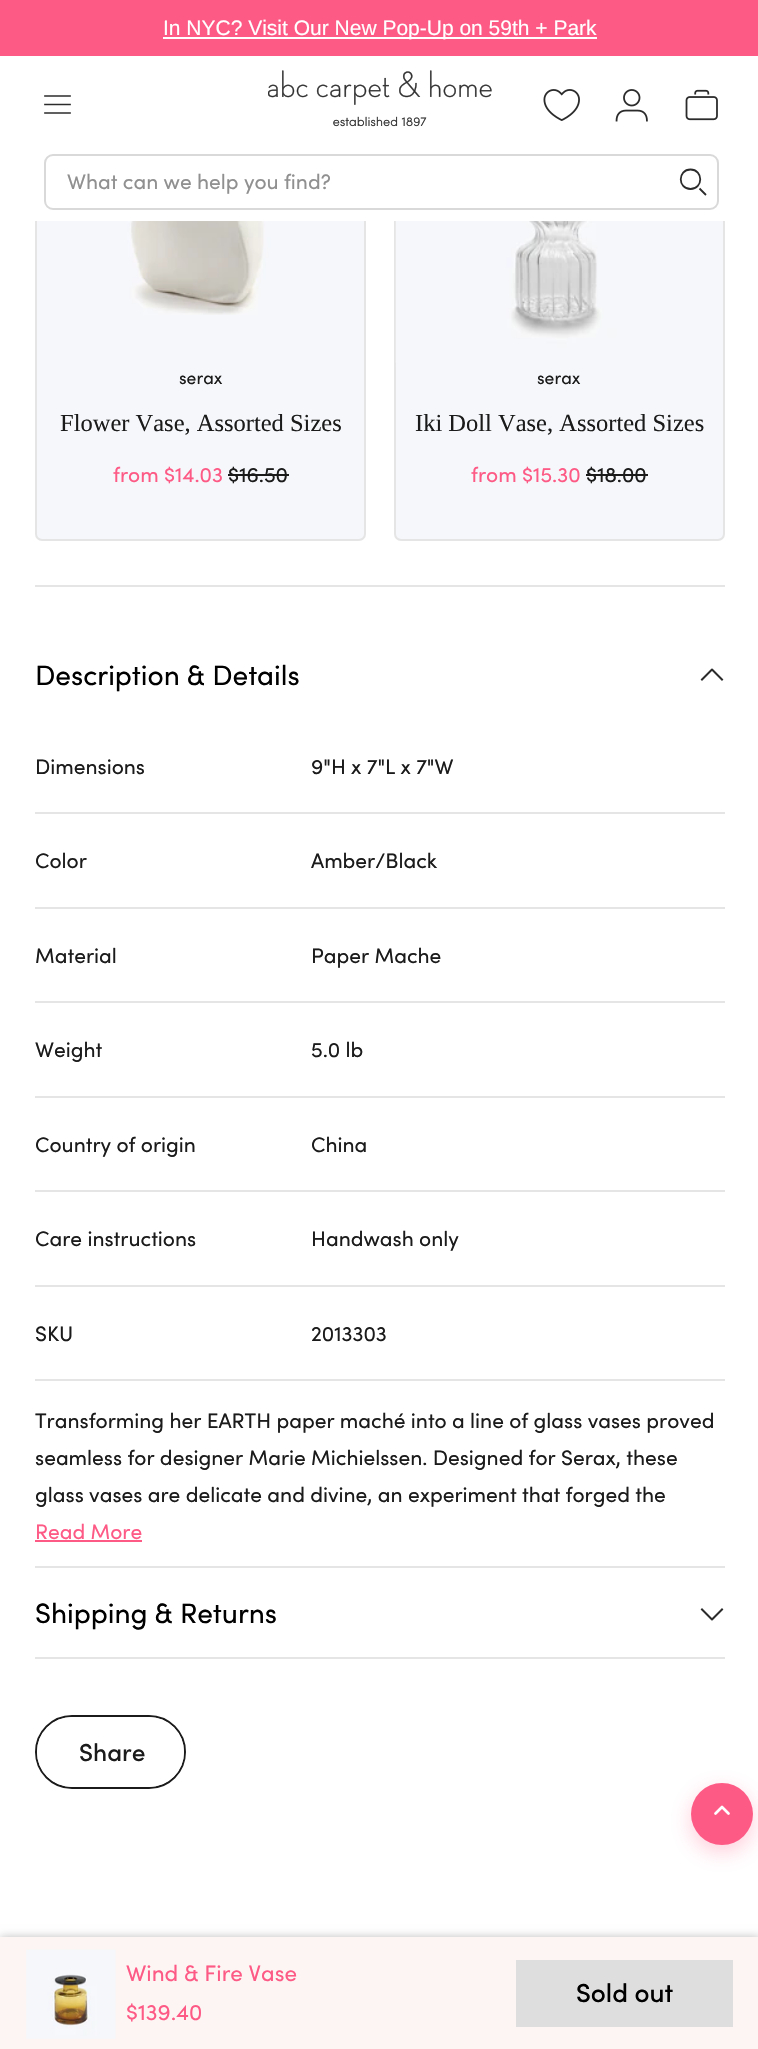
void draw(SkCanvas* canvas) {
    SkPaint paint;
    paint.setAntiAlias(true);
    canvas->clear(0xFFFFFFFF);
    paint.setColor(0xFFF5F7FA);
    canvas->drawRoundRect(SkRect::MakeXYWH(36, 36, 329, 504), 6, 6, paint);
    paint.setStyle(SkPaint::kStroke_Style);
    paint.setStrokeWidth(2);
    paint.setColor(0xFFE5E5E5);
    canvas->drawRoundRect(SkRect::MakeXYWH(36, 36, 329, 504), 6, 6, paint);
    paint.setStyle(SkPaint::kFill_Style);
    paint.setColor(0xFFF5F7FA);
    canvas->drawRoundRect(SkRect::MakeXYWH(395, 36, 329, 504), 6, 6, paint);
    paint.setStyle(SkPaint::kStroke_Style);
    paint.setColor(0xFFE5E5E5);
    canvas->drawRoundRect(SkRect::MakeXYWH(395, 36, 329, 504), 6, 6, paint);
    paint.setStyle(SkPaint::kFill_Style);
    paint.setColor(0xFFFE5A86);
    canvas->drawRect(SkRect::MakeXYWH(0, 0, 758, 56), paint);
    paint.setColor(0xFFFFFFFF);
    canvas->drawRect(SkRect::MakeXYWH(163, 37, 434, 2), paint);
    SkFont font1(fontMgr->matchFamilyStyle("Liberation Sans", SkFontStyle::Normal()), 21);
    font1.setSubpixel(true);
    canvas->drawString("In NYC? Visit Our New Pop-Up on 59th + Park", 163, 35, font1, paint);
    canvas->drawRect(SkRect::MakeXYWH(35, 56, 690, 165), paint);
    canvas->drawImageRect(SkImages::DeferredFromEncodedData(SkData::MakeFromFileName("img1.png")), SkRect::MakeXYWH(268, 70, 224, 57), SkSamplingOptions());
    canvas->drawImageRect(SkImages::DeferredFromEncodedData(SkData::MakeFromFileName("img2.png")), SkRect::MakeXYWH(543, 89, 37, 32), SkSamplingOptions());
    canvas->drawImageRect(SkImages::DeferredFromEncodedData(SkData::MakeFromFileName("img3.png")), SkRect::MakeXYWH(615, 89, 33, 33), SkSamplingOptions());
    canvas->drawImageRect(SkImages::DeferredFromEncodedData(SkData::MakeFromFileName("img4.png")), SkRect::MakeXYWH(685, 89, 33, 32), SkSamplingOptions());
    paint.setStyle(SkPaint::kStroke_Style);
    paint.setStrokeWidth(1.7f);
    paint.setStrokeCap(SkPaint::kSquare_Cap);
    paint.setStrokeJoin(SkPaint::kRound_Join);
    paint.setColor(0xFF2B2B2B);
    canvas->drawPath(SkPathBuilder().moveTo(45, 104.5f).lineTo(70, 104.5f).moveTo(45, 96).lineTo(70, 96).moveTo(45, 113).lineTo(70, 113).detach(), paint);
    paint.setStrokeWidth(2);
    paint.setStrokeCap(SkPaint::kButt_Cap);
    paint.setStrokeJoin(SkPaint::kMiter_Join);
    paint.setColor(0xFFD9D9D9);
    canvas->drawRoundRect(SkRect::MakeXYWH(45, 155, 673, 54), 8, 8, paint);
    SkFont font2(fontMgr->matchFamilyStyle("Sofia", SkFontStyle::Normal()), 21);
    font2.setSubpixel(true);
    paint.setStyle(SkPaint::kFill_Style);
    paint.setColor(0xFF909090);
    canvas->drawString("What can we help you find?", 67, 189, font2, paint);
    paint.setStyle(SkPaint::kStroke_Style);
    paint.setStrokeWidth(1.8f);
    paint.setColor(0xFF2B2B2B);
    canvas->drawPath(SkPathBuilder().moveTo(690.5f, 189).cubicTo(703.5f, 189, 703.5f, 169.5f, 690.5f, 169.5f).cubicTo(677.5f, 169.5f, 677.5f, 189, 690.5f, 189).close().moveTo(699.5f, 188.5f).lineTo(706, 195).detach(), paint);
    canvas->drawImageRect(SkImages::DeferredFromEncodedData(SkData::MakeFromFileName("img5.png")), SkRect::MakeXYWH(37, 221, 327, 94), SkSamplingOptions());
    SkFont font3(fontMgr->matchFamilyStyle("Sofia", SkFontStyle::Normal()), 17.5f);
    font3.setSubpixel(true);
    paint.setStyle(SkPaint::kFill_Style);
    paint.setColor(0xFF1B1B1B);
    canvas->drawString("serax", 179, 384, font3, paint);
    SkFont font4(fontMgr->matchFamilyStyle("Liberation Serif", SkFontStyle::Normal()), 24.5f);
    font4.setSubpixel(true);
    canvas->drawString("Flower Vase, Assorted Sizes", 60, 431, font4, paint);
    paint.setColor(0xFFFE5A86);
    canvas->drawString("from $14.03", 113, 482, font2, paint);
    paint.setColor(0xFF1B1B1B);
    canvas->drawString("$16.50", 228, 482, font2, paint);
    canvas->drawRect(SkRect::MakeXYWH(228, 474, 61, 2), paint);
    canvas->drawImageRect(SkImages::DeferredFromEncodedData(SkData::MakeFromFileName("img6.png")), SkRect::MakeXYWH(395, 221, 327, 142), SkSamplingOptions());
    canvas->drawString("serax", 537, 384, font3, paint);
    canvas->drawString("Iki Doll Vase, Assorted Sizes", 415, 431, font4, paint);
    paint.setColor(0xFFFE5A86);
    canvas->drawString("from $15.30", 471, 482, font2, paint);
    paint.setColor(0xFF1B1B1B);
    canvas->drawString("$18.00", 586, 482, font2, paint);
    canvas->drawRect(SkRect::MakeXYWH(586, 474, 62, 2), paint);
    paint.setColor(0xFFE5E5E5);
    canvas->drawRect(SkRect::MakeXYWH(35, 585, 690, 2), paint);
    canvas->drawRect(SkRect::MakeXYWH(35, 1566, 690, 2), paint);
    SkFont font5(fontMgr->matchFamilyStyle("Sofia", SkFontStyle::Normal()), 28);
    font5.setSubpixel(true);
    paint.setColor(0xFF000000);
    canvas->drawString("Description & Details", 35, 685, font5, paint);
    paint.setStyle(SkPaint::kStroke_Style);
    paint.setStrokeWidth(2);
    paint.setStrokeCap(SkPaint::kSquare_Cap);
    paint.setStrokeJoin(SkPaint::kRound_Join);
    paint.setColor(0xFF2B2B2B);
    canvas->drawPath(SkPathBuilder().moveTo(702, 679.5f).lineTo(712, 669.5f).lineTo(722, 679.5f).detach(), paint);
    paint.setStyle(SkPaint::kFill_Style);
    paint.setColor(0xFFE5E5E5);
    canvas->drawRect(SkRect::MakeXYWH(35, 812, 690, 2), paint);
    paint.setColor(0xFF1B1B1B);
    canvas->drawString("Dimensions", 35, 774, font2, paint);
    canvas->drawString("9\"H x 7\"L x 7\"W", 311, 774, font2, paint);
    paint.setColor(0xFFE5E5E5);
    canvas->drawRect(SkRect::MakeXYWH(35, 907, 690, 2), paint);
    paint.setColor(0xFF1B1B1B);
    canvas->drawString("Color", 35, 868, font2, paint);
    canvas->drawString("Amber/Black", 311, 868, font2, paint);
    paint.setColor(0xFFE5E5E5);
    canvas->drawRect(SkRect::MakeXYWH(35, 1001, 690, 2), paint);
    paint.setColor(0xFF1B1B1B);
    canvas->drawString("Material", 35, 963, font2, paint);
    canvas->drawString("Paper Mache", 311, 963, font2, paint);
    paint.setColor(0xFFE5E5E5);
    canvas->drawRect(SkRect::MakeXYWH(35, 1096, 690, 2), paint);
    paint.setColor(0xFF1B1B1B);
    canvas->drawString("Weight", 35, 1057, font2, paint);
    canvas->drawString("5.0 lb", 311, 1057, font2, paint);
    paint.setColor(0xFFE5E5E5);
    canvas->drawRect(SkRect::MakeXYWH(35, 1190, 690, 2), paint);
    paint.setColor(0xFF1B1B1B);
    canvas->drawString("Country of origin", 35, 1152, font2, paint);
    canvas->drawString("China", 311, 1152, font2, paint);
    paint.setColor(0xFFE5E5E5);
    canvas->drawRect(SkRect::MakeXYWH(35, 1285, 690, 2), paint);
    paint.setColor(0xFF1B1B1B);
    canvas->drawString("Care instructions", 35, 1246, font2, paint);
    canvas->drawString("Handwash only", 311, 1246, font2, paint);
    paint.setColor(0xFFE5E5E5);
    canvas->drawRect(SkRect::MakeXYWH(35, 1379, 690, 2), paint);
    paint.setColor(0xFF1B1B1B);
    canvas->drawString("SKU", 35, 1341, font2, paint);
    canvas->drawString("2013303", 311, 1341, font2, paint);
    canvas->drawString("Transforming her EARTH paper maché into a line of glass vases proved", 35, 1428, font2, paint);
    canvas->drawString("seamless for designer Marie Michielssen. Designed for Serax, these", 35, 1465, font2, paint);
    canvas->drawString("glass vases are delicate and divine, an experiment that forged the", 35, 1502, font2, paint);
    paint.setColor(0xFFFE5A86);
    canvas->drawString("Read More", 35, 1539, font2, paint);
    canvas->drawRect(SkRect::MakeXYWH(35, 1540, 107, 2), paint);
    paint.setColor(0xFFE5E5E5);
    canvas->drawRect(SkRect::MakeXYWH(35, 1657, 690, 2), paint);
    paint.setColor(0xFF000000);
    canvas->drawString("Shipping & Returns", 35, 1623, font5, paint);
    paint.setStyle(SkPaint::kStroke_Style);
    paint.setColor(0xFF2B2B2B);
    canvas->drawPath(SkPathBuilder().moveTo(722, 1609.5f).lineTo(712, 1619.5f).lineTo(702, 1609.5f).detach(), paint);
    paint.setStrokeCap(SkPaint::kButt_Cap);
    paint.setStrokeJoin(SkPaint::kMiter_Join);
    paint.setColor(0xFF1B1B1B);
    canvas->drawRoundRect(SkRect::MakeXYWH(36, 1716, 149, 72), 36, 36, paint);
    paint.setStyle(SkPaint::kFill_Style);
    paint.setColor(0xFFFFFFFF);
    canvas->drawRoundRect(SkRect::MakeXYWH(37, 1717, 147, 70), 35, 35, paint);
    SkFont font6(fontMgr->matchFamilyStyle("Sofia", SkFontStyle(500, SkFontStyle::kNormal_Width, SkFontStyle::kUpright_Slant)), 24.5f);
    font6.setSubpixel(true);
    paint.setColor(0xFF1B1B1B);
    canvas->drawString("Share", 79, 1761, font6, paint);
    paint.setColor(0x40000000);
    paint.setMaskFilter(SkMaskFilter::MakeBlur(kNormal_SkBlurStyle, 4.5f));
    canvas->drawRect(SkRect::MakeXYWH(0, 1937, 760, 112), paint);
    paint.setMaskFilter(nullptr);
    paint.setColor(0xFFFDF5F3);
    canvas->drawRect(SkRect::MakeXYWH(0, 1937, 758, 112), paint);
    canvas->drawImageRect(SkImages::DeferredFromEncodedData(SkData::MakeFromFileName("img7.png")), SkRect::MakeXYWH(26, 1949, 90, 90), SkSamplingOptions());
    SkFont font7(fontMgr->matchFamilyStyle("Sofia", SkFontStyle::Normal()), 22.5f);
    font7.setSubpixel(true);
    paint.setColor(0xFFFE5A86);
    canvas->drawString("Wind & Fire Vase", 126, 1981, font7, paint);
    canvas->drawString("$139.40", 126, 2020, font7, paint);
    paint.setColor(0xFFDEDEDE);
    canvas->drawRect(SkRect::MakeXYWH(516, 1960, 217, 67), paint);
    SkFont font8(fontMgr->matchFamilyStyle("Sofia", SkFontStyle(500, SkFontStyle::kNormal_Width, SkFontStyle::kUpright_Slant)), 26);
    font8.setSubpixel(true);
    paint.setColor(0xFF000000);
    canvas->drawString("Sold out", 576, 2002, font8, paint);
    paint.setColor(0x4DFE5A86);
    paint.setMaskFilter(SkMaskFilter::MakeBlur(kNormal_SkBlurStyle, 10.5f));
    canvas->drawRoundRect(SkRect::MakeXYWH(691, 1790, 62, 62), 31, 31, paint);
    paint.setMaskFilter(nullptr);
    paint.setColor(0xFFFE5A86);
    canvas->drawCircle(722, 1814, 31, paint);
    paint.setStyle(SkPaint::kStroke_Style);
    paint.setStrokeWidth(2.7f);
    paint.setStrokeCap(SkPaint::kRound_Cap);
    paint.setStrokeJoin(SkPaint::kRound_Join);
    paint.setColor(0xFFFFFFFF);
    canvas->drawPath(SkPathBuilder().moveTo(728.5f, 1813.5f).lineTo(722, 1807).lineTo(715.5f, 1813.5f).detach(), paint);
}
